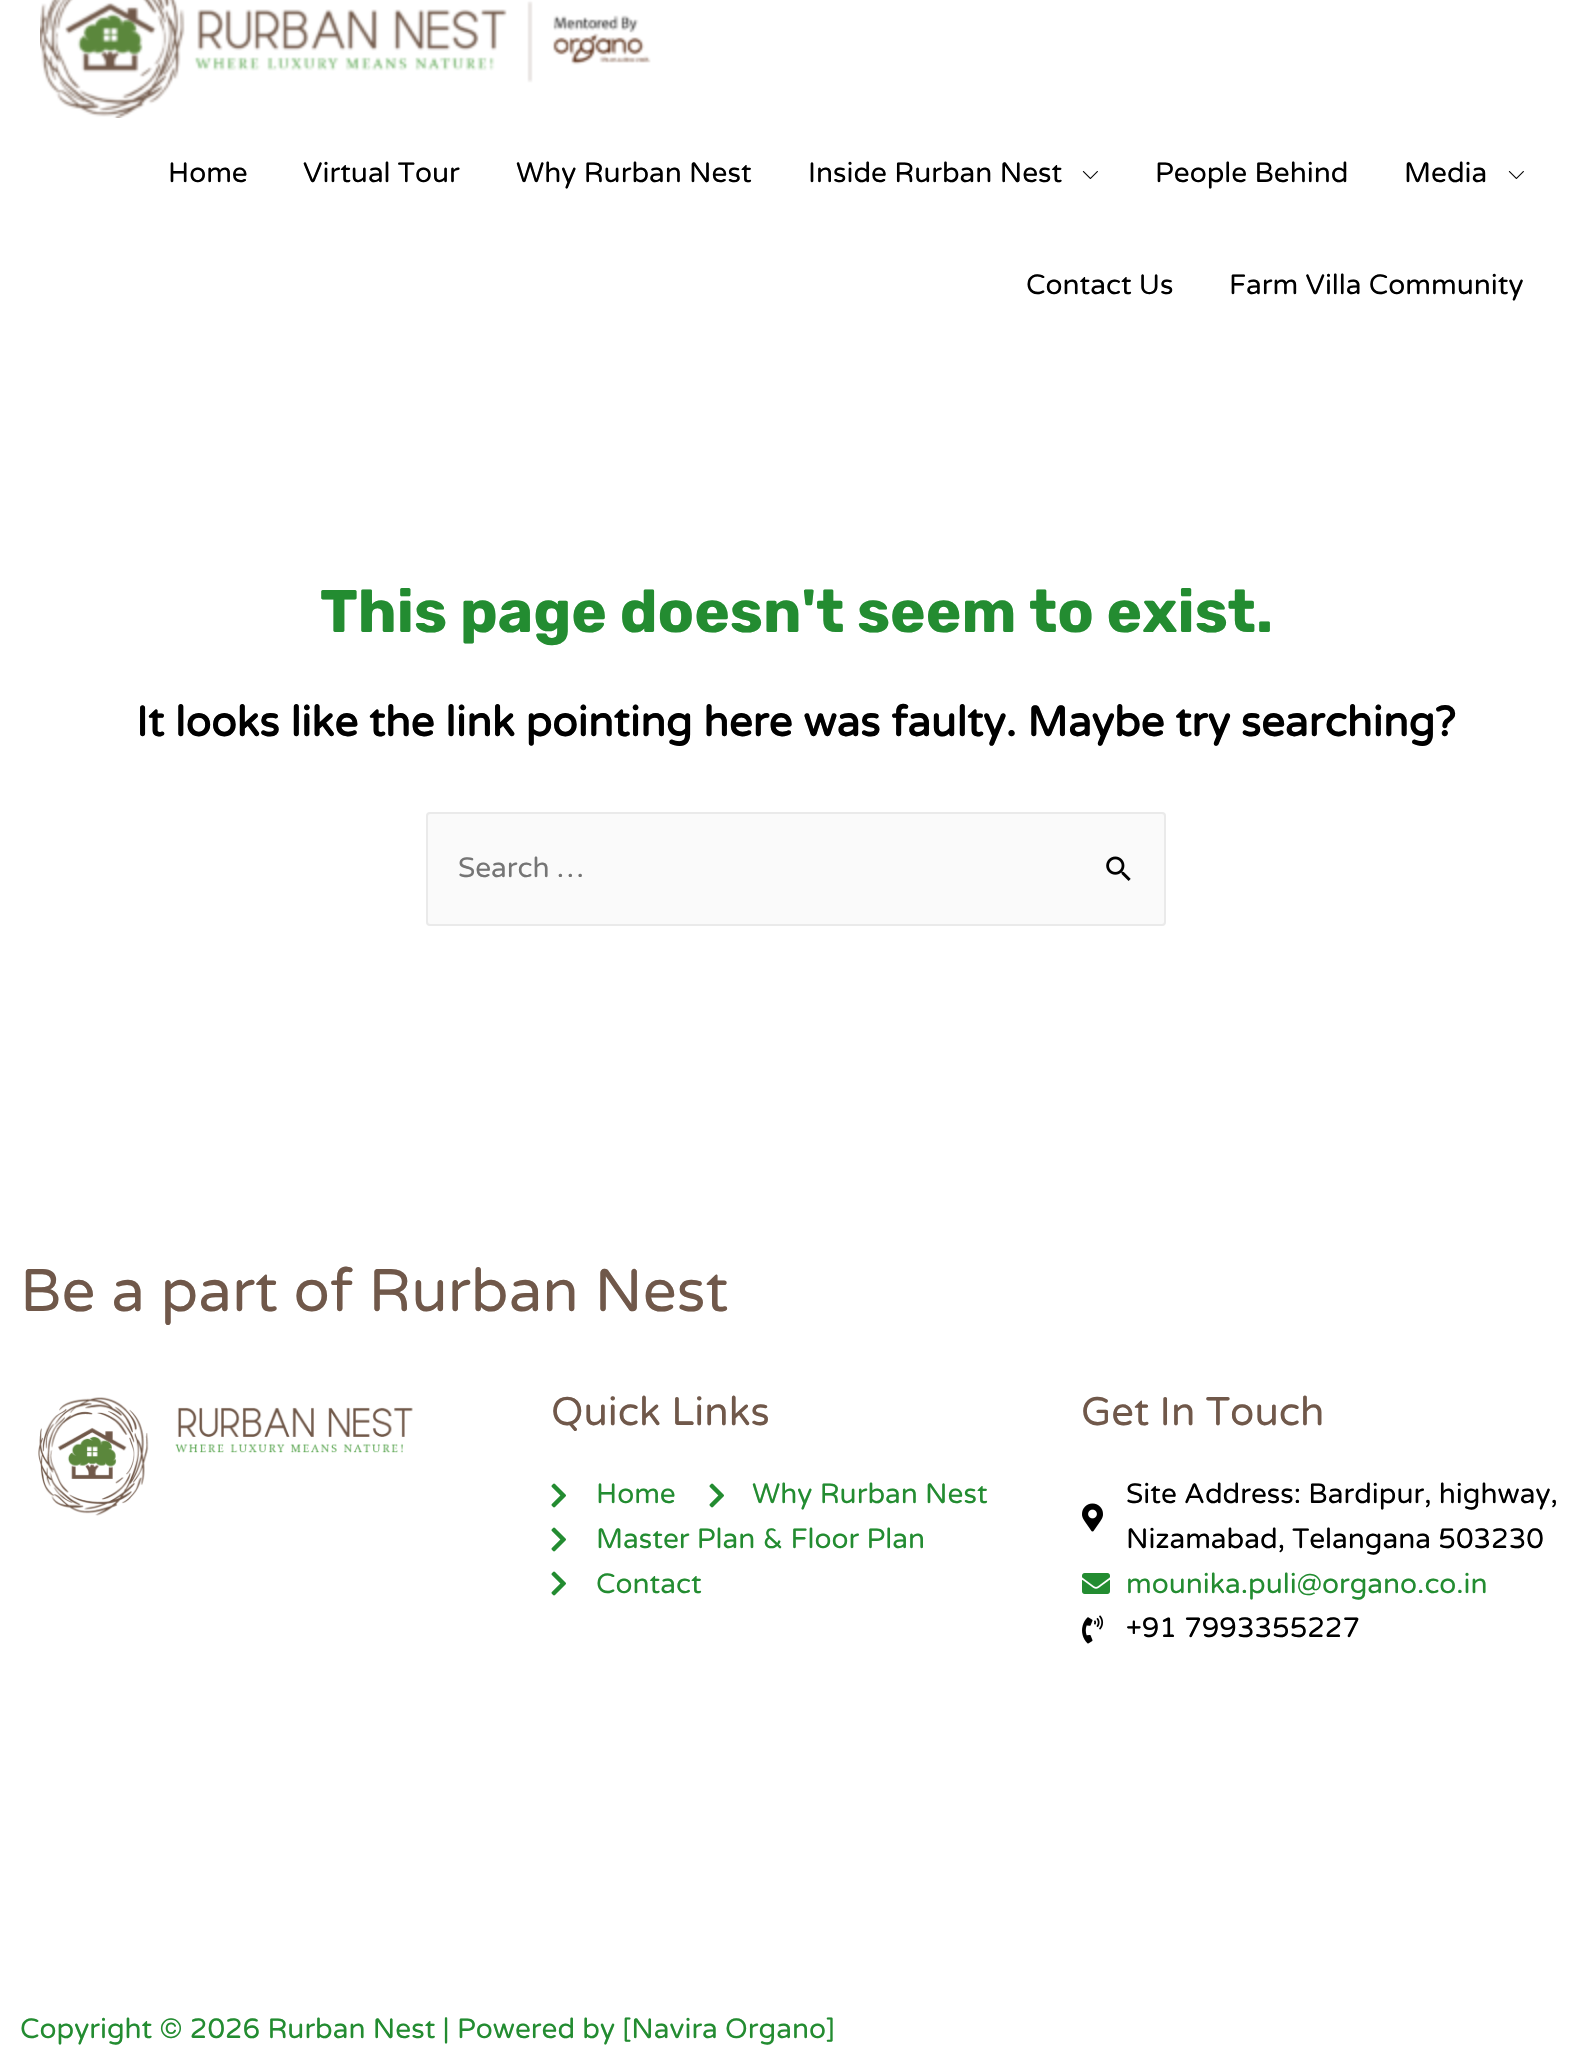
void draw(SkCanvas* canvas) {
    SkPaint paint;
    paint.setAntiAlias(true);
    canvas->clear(0xFFFFFFFF);
    canvas->drawImageRect(SkImages::DeferredFromEncodedData(SkData::MakeFromFileName("img1.png")), SkRect::MakeXYWH(40, 0, 611, 118), SkSamplingOptions());
    SkFont font1(fontMgr->matchFamilyStyle("Varela Round", SkFontStyle::Normal()), 28);
    font1.setSubpixel(true);
    paint.setColor(0xFF000000);
    canvas->drawString("Home", 168, 182, font1, paint);
    canvas->drawString("Virtual Tour", 303, 182, font1, paint);
    canvas->drawString("Why Rurban Nest", 516, 182, font1, paint);
    canvas->drawString("Inside Rurban Nest", 808, 182, font1, paint);
    canvas->drawImageRect(SkImages::DeferredFromEncodedData(SkData::MakeFromFileName("img2.png")), SkRect::MakeXYWH(1082, 171, 16, 8), SkSamplingOptions());
    canvas->drawString("People Behind", 1155, 182, font1, paint);
    canvas->drawString("Media", 1404, 182, font1, paint);
    canvas->drawImageRect(SkImages::DeferredFromEncodedData(SkData::MakeFromFileName("img2.png")), SkRect::MakeXYWH(1508, 171, 16, 8), SkSamplingOptions());
    canvas->drawString("Contact Us", 1026, 294, font1, paint);
    canvas->drawString("Farm Villa Community", 1229, 294, font1, paint);
    SkFont font2(fontMgr->matchFamilyStyle("Rubik", SkFontStyle(300, SkFontStyle::kNormal_Width, SkFontStyle::kUpright_Slant)), 60);
    font2.setSubpixel(true);
    paint.setColor(0xFF238C31);
    canvas->drawString("This page doesn't seem to exist.", 320, 632, font2, paint);
    SkFont font3(fontMgr->matchFamilyStyle("Varela Round", SkFontStyle::Bold()), 42);
    font3.setSubpixel(true);
    paint.setColor(0xFF000000);
    canvas->drawString("It looks like the link pointing here was faulty. Maybe try searching?", 136, 736, font3, paint);
    paint.setColor(0xFFFAFAFA);
    canvas->drawRoundRect(SkRect::MakeXYWH(427, 813, 738, 112), 3, 3, paint);
    paint.setStyle(SkPaint::kStroke_Style);
    paint.setStrokeWidth(2);
    paint.setColor(0xFFEAEAEA);
    canvas->drawRoundRect(SkRect::MakeXYWH(427, 813, 738, 112), 3, 3, paint);
    paint.setStyle(SkPaint::kFill_Style);
    paint.setColor(0xFF757575);
    canvas->drawString("Search …", 458, 877, font1, paint);
    canvas->drawImageRect(SkImages::DeferredFromEncodedData(SkData::MakeFromFileName("img3.png")), SkRect::MakeXYWH(1106, 856, 25, 25), SkSamplingOptions());
    SkFont font4(fontMgr->matchFamilyStyle("Varela Round", SkFontStyle::Normal()), 60);
    font4.setSubpixel(true);
    paint.setColor(0xFF70584A);
    canvas->drawString("Be a part of Rurban Nest", 20, 1311, font4, paint);
    canvas->drawImageRect(SkImages::DeferredFromEncodedData(SkData::MakeFromFileName("img4.png")), SkRect::MakeXYWH(38, 1397, 375, 119), SkSamplingOptions());
    SkFont font5(fontMgr->matchFamilyStyle("Varela Round", SkFontStyle::Normal()), 40);
    font5.setSubpixel(true);
    canvas->drawString("Quick Links", 551, 1425, font5, paint);
    canvas->drawImageRect(SkImages::DeferredFromEncodedData(SkData::MakeFromFileName("img5.png")), SkRect::MakeXYWH(551, 1483, 15, 25), SkSamplingOptions());
    paint.setColor(0xFF238C31);
    canvas->drawString("Home", 596, 1503, font1, paint);
    canvas->drawImageRect(SkImages::DeferredFromEncodedData(SkData::MakeFromFileName("img5.png")), SkRect::MakeXYWH(709, 1483, 15, 25), SkSamplingOptions());
    canvas->drawString("Why Rurban Nest", 752, 1503, font1, paint);
    canvas->drawImageRect(SkImages::DeferredFromEncodedData(SkData::MakeFromFileName("img5.png")), SkRect::MakeXYWH(551, 1527, 15, 25), SkSamplingOptions());
    canvas->drawString("Master Plan & Floor Plan", 596, 1548, font1, paint);
    canvas->drawImageRect(SkImages::DeferredFromEncodedData(SkData::MakeFromFileName("img5.png")), SkRect::MakeXYWH(551, 1571, 15, 25), SkSamplingOptions());
    canvas->drawString("Contact", 596, 1593, font1, paint);
    paint.setColor(0xFF70584A);
    canvas->drawString("Get In Touch", 1081, 1425, font5, paint);
    canvas->drawImageRect(SkImages::DeferredFromEncodedData(SkData::MakeFromFileName("img6.png")), SkRect::MakeXYWH(1082, 1503, 21, 29), SkSamplingOptions());
    paint.setColor(0xFF000000);
    canvas->drawString("Site Address: Bardipur, highway,", 1126, 1503, font1, paint);
    canvas->drawString("Nizamabad, Telangana 503230", 1126, 1548, font1, paint);
    canvas->drawImageRect(SkImages::DeferredFromEncodedData(SkData::MakeFromFileName("img7.png")), SkRect::MakeXYWH(1082, 1573, 28, 21), SkSamplingOptions());
    paint.setColor(0xFF238C31);
    canvas->drawString("mounika.puli@organo.co.in", 1126, 1593, font1, paint);
    canvas->drawImageRect(SkImages::DeferredFromEncodedData(SkData::MakeFromFileName("img8.png")), SkRect::MakeXYWH(1082, 1615, 22, 29), SkSamplingOptions());
    paint.setColor(0xFF000000);
    canvas->drawString("+91 7993355227", 1126, 1637, font1, paint);
    paint.setColor(0xFF238C31);
    canvas->drawString("Copyright © 2026 Rurban Nest | Powered by [Navira Organo]", 20, 2038, font1, paint);
}
